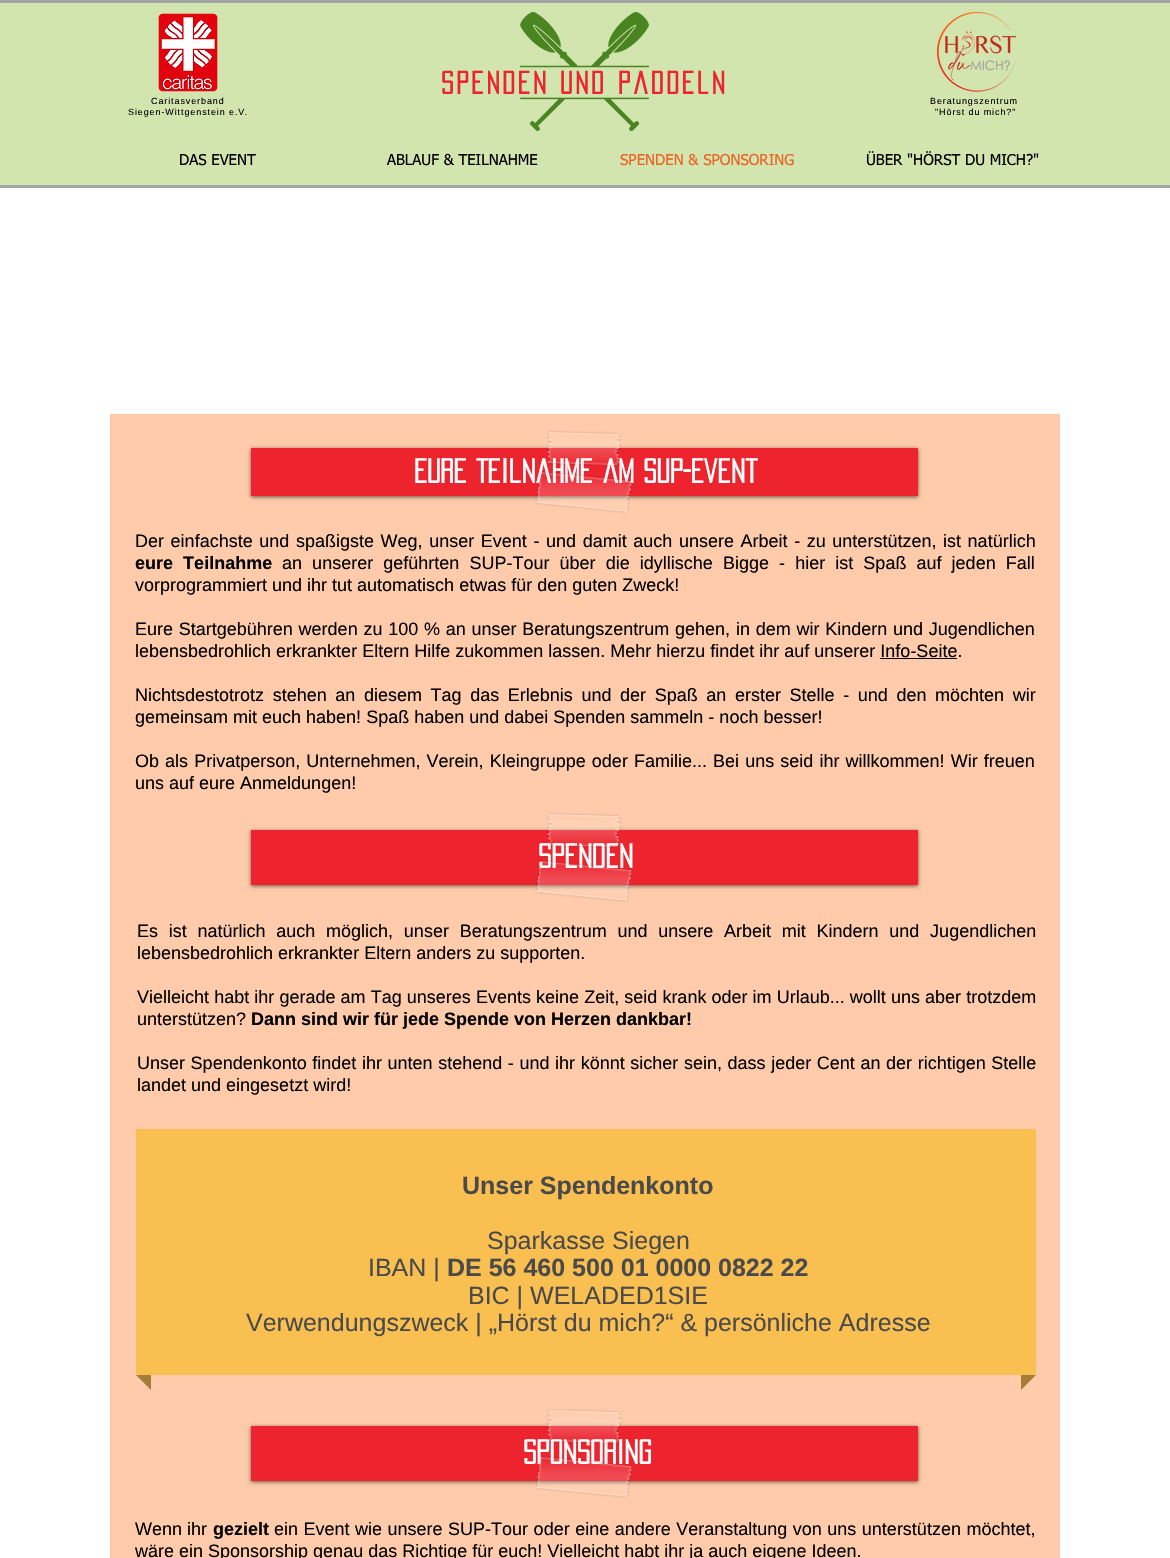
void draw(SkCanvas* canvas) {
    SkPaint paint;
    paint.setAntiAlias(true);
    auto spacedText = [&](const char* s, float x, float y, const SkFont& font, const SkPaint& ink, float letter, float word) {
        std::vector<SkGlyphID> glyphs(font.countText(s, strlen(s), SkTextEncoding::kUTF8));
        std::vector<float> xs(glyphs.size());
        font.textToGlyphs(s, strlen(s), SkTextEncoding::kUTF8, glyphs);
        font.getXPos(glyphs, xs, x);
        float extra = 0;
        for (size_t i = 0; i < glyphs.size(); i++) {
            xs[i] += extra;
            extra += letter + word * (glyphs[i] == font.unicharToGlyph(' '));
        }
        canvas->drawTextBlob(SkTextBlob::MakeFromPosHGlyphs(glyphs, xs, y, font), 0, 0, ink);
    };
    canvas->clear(0xFFFFFFFF);
    paint.setColor(0xFFD3E5AF);
    canvas->drawRect(SkRect::MakeXYWH(0, 3, 1170, 182), paint);
    paint.setColor(0xFFA4A4A4);
    canvas->drawRect(SkRect::MakeXYWH(0, 0, 1170, 3), paint);
    canvas->drawRect(SkRect::MakeXYWH(0, 185, 1170, 3), paint);
    canvas->drawImageRect(SkImages::DeferredFromEncodedData(SkData::MakeFromFileName("img1.png")), SkRect::MakeXYWH(158, 13, 60, 79), SkSamplingOptions());
    SkFont font1(fontMgr->matchFamilyStyle("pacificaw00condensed", SkFontStyle::Bold()), 28);
    font1.setSubpixel(true);
    paint.setColor(0xFFED242E);
    spacedText("Spenden und Paddeln", 441, 94, font1, paint, 2.75f, 0);
    canvas->drawImageRect(SkImages::DeferredFromEncodedData(SkData::MakeFromFileName("img2.png")), SkRect::MakeXYWH(520, 12, 129, 119), SkSamplingOptions());
    canvas->drawImageRect(SkImages::DeferredFromEncodedData(SkData::MakeFromFileName("img3.png")), SkRect::MakeXYWH(937, 12, 79, 80), SkSamplingOptions());
    SkFont font2(fontMgr->matchFamilyStyle("Liberation Sans", SkFontStyle::Normal()), 9);
    font2.setSubpixel(true);
    paint.setColor(0xFF000000);
    spacedText("Caritasverband", 151, 104, font2, paint, 0.9f, 0);
    spacedText("Siegen-Wittgenstein e.V", 128, 115, font2, paint, 0.9f, 0);
    SkFont font3(fontMgr->matchFamilyStyle("pacificaw00condensed", SkFontStyle::Bold()), 9);
    font3.setSubpixel(true);
    spacedText(".", 245, 115, font3, paint, 0.9f, 0);
    spacedText("Beratungszentrum", 930, 104, font2, paint, 0.9f, 0);
    spacedText("\"Hörst du mich?\"", 935, 115, font2, paint, 0.9f, 0);
    SkFont font4(fontMgr->matchFamilyStyle("tahoma", SkFontStyle::Normal()), 15);
    font4.setSubpixel(true);
    canvas->drawString("DAS EVENT", 179, 165, font4, paint);
    canvas->drawString("ABLAUF & TEILNAHME", 387, 165, font4, paint);
    paint.setColor(0xFFED6124);
    canvas->drawString("SPENDEN & SPONSORING", 620, 165, font4, paint);
    paint.setColor(0xFF000000);
    canvas->drawString("ÜBER \"HÖRST DU MICH?\"", 866, 165, font4, paint);
    paint.setColor(0xFFFFCBAA);
    canvas->drawRect(SkRect::MakeXYWH(110, 414, 950, 1144), paint);
    paint.setColor(0x99000000);
    paint.setMaskFilter(SkMaskFilter::MakeBlur(kNormal_SkBlurStyle, 2));
    canvas->drawRect(SkRect::MakeXYWH(251, 449, 667, 48), paint);
    paint.setMaskFilter(nullptr);
    paint.setColor(0xFFED242E);
    canvas->drawRect(SkRect::MakeXYWH(251, 448, 667, 48), paint);
    SkFont font5(fontMgr->matchFamilyStyle("pacificaw00condensed", SkFontStyle::Bold()), 30);
    font5.setSubpixel(true);
    paint.setColor(0xFFFFFFFF);
    canvas->drawString("Eure Teilnahme am SUP-Event", 414, 483, font5, paint);
    canvas->drawImageRect(SkImages::DeferredFromEncodedData(SkData::MakeFromFileName("img4.png")), SkRect::MakeXYWH(547, 431, 75, 35), SkSamplingOptions());
    canvas->drawImageRect(SkImages::DeferredFromEncodedData(SkData::MakeFromFileName("img5.png")), SkRect::MakeXYWH(535, 471, 98, 42), SkSamplingOptions());
    SkFont font6(fontMgr->matchFamilyStyle("Liberation Sans", SkFontStyle::Normal()), 18);
    font6.setSubpixel(true);
    paint.setColor(0xFF000000);
    spacedText("Der einfachste und spaßigste Weg, unser Event - und damit auch unsere Arbeit - zu unterstützen, ist natürlich", 135, 547, font6, paint, 0, 1.6f);
    SkFont font7(fontMgr->matchFamilyStyle("Liberation Sans", SkFontStyle::Bold()), 18);
    font7.setSubpixel(true);
    spacedText("eure Teilnahme", 135, 569, font7, paint, 0, 5.1f);
    spacedText("an unserer geführten SUP-Tour über die idyllische Bigge - hier ist Spaß auf jeden Fall", 282, 569, font6, paint, 0, 5.1f);
    canvas->drawString("vorprogrammiert und ihr tut automatisch etwas für den guten Zweck!", 135, 591, font6, paint);
    spacedText("Eure Startgebühren werden zu 100 % an unser Beratungszentrum gehen, in dem wir Kindern und Jugendlichen", 135, 635, font6, paint, 0, 0.75f);
    canvas->drawString("lebensbedrohlich erkrankter Eltern Hilfe zukommen lassen. Mehr hierzu findet ihr auf unserer Info-Seite.", 135, 657, font6, paint);
    canvas->drawRect(SkRect::MakeXYWH(880, 658, 77, 1), paint);
    spacedText("Nichtsdestotrotz stehen an diesem Tag das Erlebnis und der Spaß an erster Stelle - und den möchten wir", 135, 701, font6, paint, 0, 3.6f);
    canvas->drawString("gemeinsam mit euch haben! Spaß haben und dabei Spenden sammeln - noch besser!", 135, 723, font6, paint);
    spacedText("Ob als Privatperson, Unternehmen, Verein, Kleingruppe oder Familie... Bei uns seid ihr willkommen! Wir freuen", 135, 767, font6, paint, 0, 1.1f);
    canvas->drawString("uns auf eure Anmeldungen!", 135, 789, font6, paint);
    paint.setColor(0x99000000);
    paint.setMaskFilter(SkMaskFilter::MakeBlur(kNormal_SkBlurStyle, 2));
    canvas->drawRect(SkRect::MakeXYWH(251, 831, 667, 55), paint);
    paint.setMaskFilter(nullptr);
    paint.setColor(0xFFED242E);
    canvas->drawRect(SkRect::MakeXYWH(251, 830, 667, 55), paint);
    paint.setColor(0xFFFFFFFF);
    canvas->drawString("Spenden", 538, 868, font5, paint);
    canvas->drawImageRect(SkImages::DeferredFromEncodedData(SkData::MakeFromFileName("img6.png")), SkRect::MakeXYWH(547, 813, 75, 35), SkSamplingOptions());
    canvas->drawImageRect(SkImages::DeferredFromEncodedData(SkData::MakeFromFileName("img7.png")), SkRect::MakeXYWH(535, 860, 98, 42), SkSamplingOptions());
    paint.setColor(0xFF000000);
    spacedText("Es ist natürlich auch möglich, unser Beratungszentrum und unsere Arbeit mit Kindern und Jugendlichen", 137, 937, font6, paint, 0, 5.75f);
    canvas->drawString("lebensbedrohlich erkrankter Eltern anders zu supporten.", 137, 959, font6, paint);
    spacedText("Vielleicht habt ihr gerade am Tag unseres Events keine Zeit, seid krank oder im Urlaub... wollt uns aber trotzdem", 137, 1003, font6, paint, 0, 0.1f);
    canvas->drawString("unterstützen?", 137, 1025, font6, paint);
    canvas->drawString("Dann sind wir für jede Spende von Herzen dankbar!", 251, 1025, font7, paint);
    spacedText("Unser Spendenkonto findet ihr unten stehend - und ihr könnt sicher sein, dass jeder Cent an der richtigen Stelle", 137, 1069, font6, paint, 0, 0.6f);
    canvas->drawString("landet und eingesetzt wird!", 137, 1091, font6, paint);
    paint.setColor(0xFFF9BF51);
    canvas->drawRect(SkRect::MakeXYWH(136, 1129, 900, 246), paint);
    SkFont font8(fontMgr->matchFamilyStyle("Liberation Sans", SkFontStyle::Bold()), 25);
    font8.setSubpixel(true);
    paint.setColor(0xFF4A4A4A);
    canvas->drawString("Unser Spendenkonto", 462, 1194, font8, paint);
    SkFont font9(fontMgr->matchFamilyStyle("Liberation Sans", SkFontStyle::Normal()), 25);
    font9.setSubpixel(true);
    canvas->drawString("Sparkasse Siegen", 487, 1249, font9, paint);
    canvas->drawString("IBAN |", 368, 1276, font9, paint);
    canvas->drawString("DE 56 460 500 01 0000 0822 22", 447, 1276, font8, paint);
    canvas->drawString("BIC | WELADED1SIE", 468, 1304, font9, paint);
    canvas->drawString("Verwendungszweck | „Hörst du mich?“ & persönliche Adresse", 246, 1331, font9, paint);
    paint.setColor(0xFFA47E36);
    canvas->drawPath(SkPathBuilder().moveTo(136, 1375).lineTo(151, 1375).lineTo(151, 1390).close().detach(), paint);
    canvas->drawPath(SkPathBuilder().moveTo(1021, 1375).lineTo(1036, 1375).lineTo(1021, 1390).close().detach(), paint);
    paint.setColor(0x99000000);
    paint.setMaskFilter(SkMaskFilter::MakeBlur(kNormal_SkBlurStyle, 2));
    canvas->drawRect(SkRect::MakeXYWH(251, 1427, 667, 55), paint);
    paint.setMaskFilter(nullptr);
    paint.setColor(0xFFED242E);
    canvas->drawRect(SkRect::MakeXYWH(251, 1426, 667, 55), paint);
    paint.setColor(0xFFFFFFFF);
    canvas->drawString("Sponsoring", 523, 1464, font5, paint);
    canvas->drawImageRect(SkImages::DeferredFromEncodedData(SkData::MakeFromFileName("img8.png")), SkRect::MakeXYWH(547, 1409, 75, 35), SkSamplingOptions());
    canvas->drawImageRect(SkImages::DeferredFromEncodedData(SkData::MakeFromFileName("img9.png")), SkRect::MakeXYWH(535, 1456, 98, 42), SkSamplingOptions());
    paint.setColor(0xFF000000);
    canvas->drawString("Wenn ihr", 135, 1535, font6, paint);
    canvas->drawString("gezielt", 213, 1535, font7, paint);
    spacedText("ein Event wie unsere SUP-Tour oder eine andere Veranstaltung von uns unterstützen möchtet,", 274, 1535, font6, paint, 0, 0.5f);
    canvas->drawString("wäre ein Sponsorship genau das Richtige für euch! Vielleicht habt ihr ja auch eigene Ideen.", 135, 1557, font6, paint);
}
